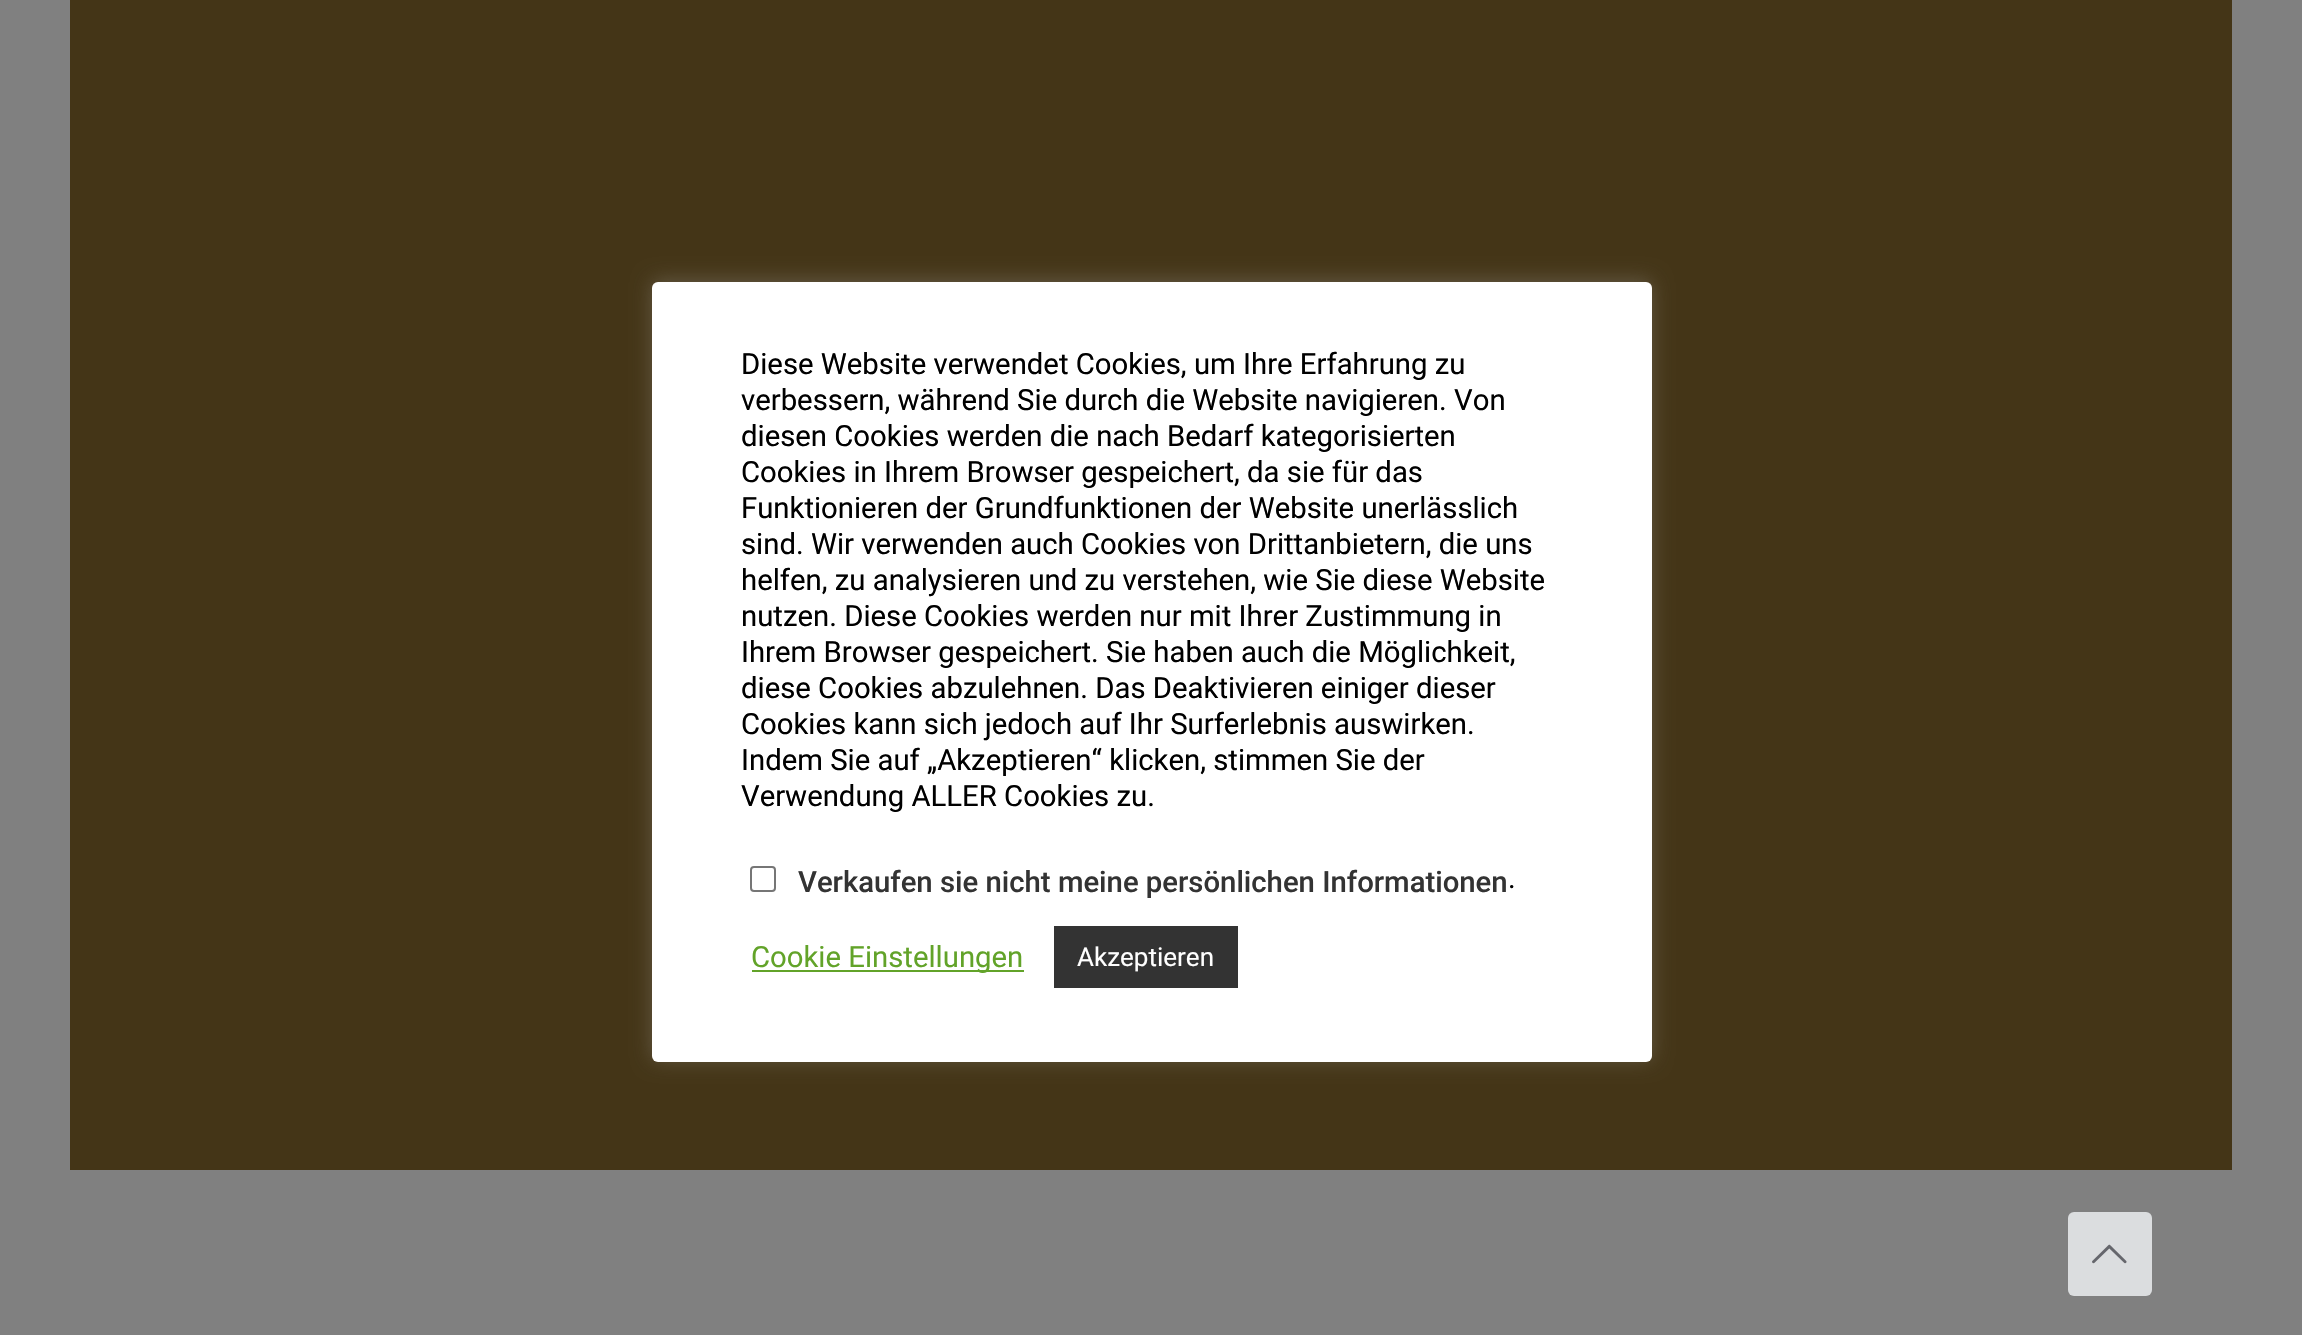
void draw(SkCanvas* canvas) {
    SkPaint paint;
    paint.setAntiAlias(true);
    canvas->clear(0xFF808080);
    paint.setColor(0xFF443517);
    canvas->drawRect(SkRect::MakeXYWH(70, 0, 2162, 1170), paint);
    paint.setColor(0x4DACABAB);
    paint.setMaskFilter(SkMaskFilter::MakeBlur(kNormal_SkBlurStyle, 10));
    canvas->drawRoundRect(SkRect::MakeXYWH(652, 280, 1000, 780), 6, 6, paint);
    paint.setMaskFilter(nullptr);
    paint.setColor(0xFFFFFFFF);
    canvas->drawRoundRect(SkRect::MakeXYWH(652, 282, 1000, 780), 6, 6, paint);
    SkFont font1(fontMgr->matchFamilyStyle("Roboto", SkFontStyle::Normal()), 29.3f);
    font1.setSubpixel(true);
    paint.setColor(0xFF000000);
    canvas->drawString("Diese Website verwendet Cookies, um Ihre Erfahrung zu", 741, 374, font1, paint);
    canvas->drawString("verbessern, während Sie durch die Website navigieren. Von", 741, 410, font1, paint);
    canvas->drawString("diesen Cookies werden die nach Bedarf kategorisierten", 741, 446, font1, paint);
    canvas->drawString("Cookies in Ihrem Browser gespeichert, da sie für das", 741, 482, font1, paint);
    canvas->drawString("Funktionieren der Grundfunktionen der Website unerlässlich", 741, 518, font1, paint);
    canvas->drawString("sind. Wir verwenden auch Cookies von Drittanbietern, die uns", 741, 554, font1, paint);
    canvas->drawString("helfen, zu analysieren und zu verstehen, wie Sie diese Website", 741, 590, font1, paint);
    canvas->drawString("nutzen. Diese Cookies werden nur mit Ihrer Zustimmung in", 741, 626, font1, paint);
    canvas->drawString("Ihrem Browser gespeichert. Sie haben auch die Möglichkeit,", 741, 662, font1, paint);
    canvas->drawString("diese Cookies abzulehnen. Das Deaktivieren einiger dieser", 741, 698, font1, paint);
    canvas->drawString("Cookies kann sich jedoch auf Ihr Surferlebnis auswirken.", 741, 734, font1, paint);
    canvas->drawString("Indem Sie auf „Akzeptieren“ klicken, stimmen Sie der", 741, 770, font1, paint);
    canvas->drawString("Verwendung ALLER Cookies zu.", 741, 806, font1, paint);
    paint.setStyle(SkPaint::kStroke_Style);
    paint.setStrokeWidth(2);
    paint.setColor(0xFF767676);
    canvas->drawRoundRect(SkRect::MakeXYWH(751, 867, 24, 24), 3, 3, paint);
    SkFont font2(fontMgr->matchFamilyStyle("Roboto", SkFontStyle(500, SkFontStyle::kNormal_Width, SkFontStyle::kUpright_Slant)), 29.3f);
    font2.setSubpixel(true);
    paint.setStyle(SkPaint::kFill_Style);
    paint.setColor(0xFF333333);
    canvas->drawString("Verkaufen sie nicht meine persönlichen Informationen", 798, 892, font2, paint);
    paint.setColor(0xFF000000);
    canvas->drawString(".", 1508, 888, font1, paint);
    paint.setColor(0xFF62A329);
    canvas->drawRect(SkRect::MakeXYWH(752, 970, 272, 2), paint);
    canvas->drawString("Cookie Einstellungen", 751, 967, font1, paint);
    paint.setColor(0xFF333333);
    canvas->drawRect(SkRect::MakeXYWH(1054, 926, 184, 62), paint);
    SkFont font3(fontMgr->matchFamilyStyle("Roboto", SkFontStyle::Normal()), 26);
    font3.setSubpixel(true);
    paint.setColor(0xFFFFFFFF);
    canvas->drawString("Akzeptieren", 1077, 966, font3, paint);
    paint.setColor(0xFFDBDDDF);
    canvas->drawRoundRect(SkRect::MakeXYWH(2068, 1212, 84, 84), 6, 6, paint);
    canvas->drawImageRect(SkImages::DeferredFromEncodedData(SkData::MakeFromFileName("img1.png")), SkRect::MakeXYWH(2092, 1244, 35, 20), SkSamplingOptions());
}
